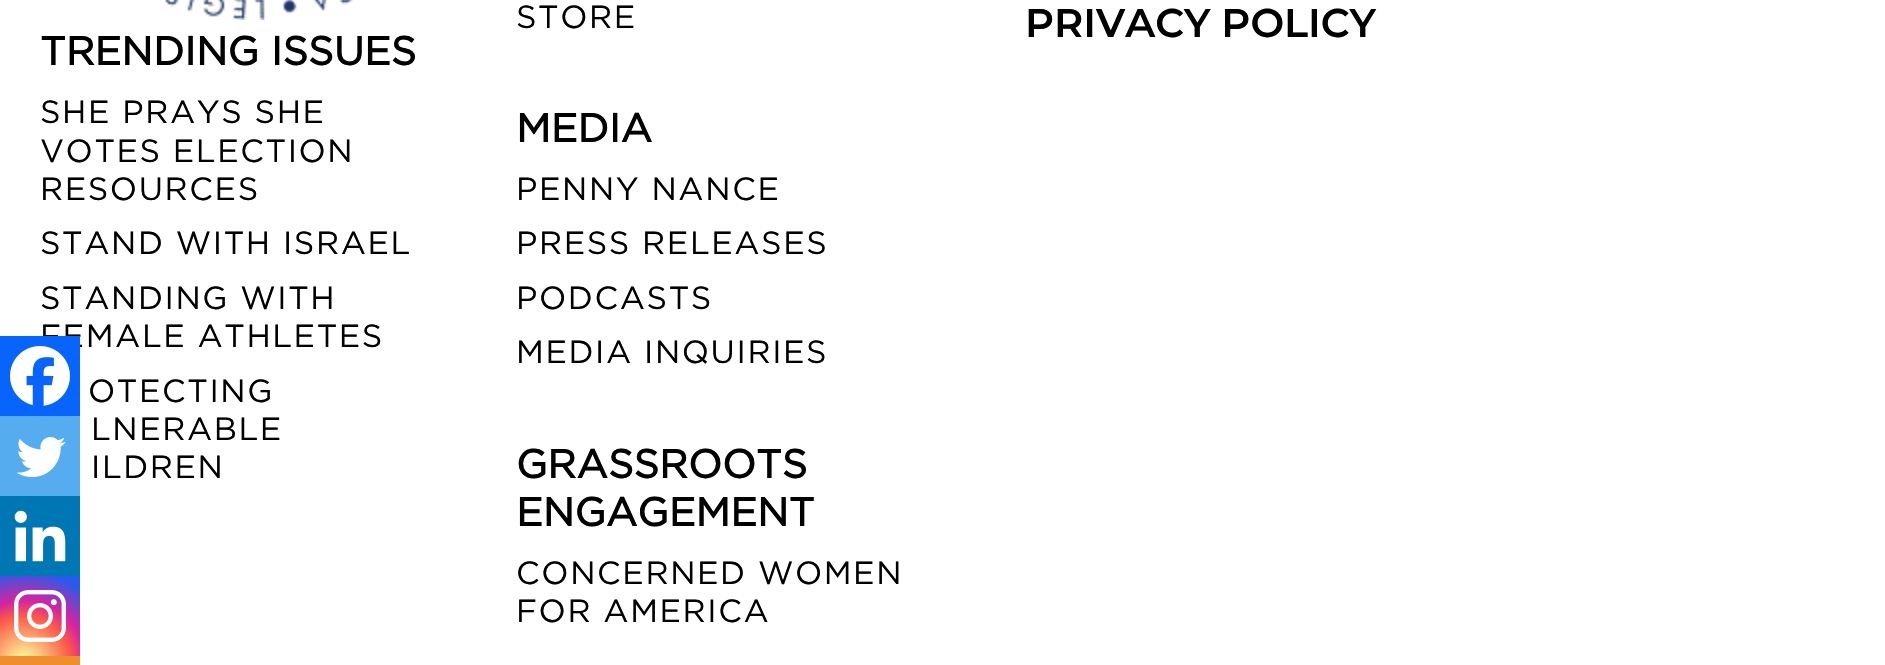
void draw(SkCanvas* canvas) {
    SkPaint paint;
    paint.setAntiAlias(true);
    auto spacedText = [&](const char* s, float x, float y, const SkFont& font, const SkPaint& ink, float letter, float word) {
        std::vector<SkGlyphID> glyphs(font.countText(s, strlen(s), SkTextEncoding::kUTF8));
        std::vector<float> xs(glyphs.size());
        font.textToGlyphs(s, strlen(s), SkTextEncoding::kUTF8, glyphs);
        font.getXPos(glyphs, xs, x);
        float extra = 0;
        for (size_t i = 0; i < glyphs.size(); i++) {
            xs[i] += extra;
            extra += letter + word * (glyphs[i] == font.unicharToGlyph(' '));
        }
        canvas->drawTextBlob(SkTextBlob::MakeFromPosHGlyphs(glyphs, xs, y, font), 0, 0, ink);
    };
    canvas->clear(0xFFFFFFFF);
    SkFont font1(fontMgr->matchFamilyStyle("Gotham", SkFontStyle::Normal()), 32);
    font1.setSubpixel(true);
    paint.setColor(0xFF000000);
    spacedText("FEMALE ATHLETES", 40, 347, font1, paint, 1.6f, 0);
    paint.setColor(0xFF0765FE);
    canvas->drawRect(SkRect::MakeXYWH(0, 336, 80, 80), paint);
    canvas->drawImageRect(SkImages::DeferredFromEncodedData(SkData::MakeFromFileName("img1.png")), SkRect::MakeXYWH(10, 346, 60, 60), SkSamplingOptions());
    paint.setColor(0xFF55ACEE);
    canvas->drawRect(SkRect::MakeXYWH(0, 416, 80, 80), paint);
    canvas->drawImageRect(SkImages::DeferredFromEncodedData(SkData::MakeFromFileName("img2.png")), SkRect::MakeXYWH(16, 437, 50, 40), SkSamplingOptions());
    paint.setColor(0xFF0077B5);
    canvas->drawRect(SkRect::MakeXYWH(0, 496, 80, 80), paint);
    canvas->drawImageRect(SkImages::DeferredFromEncodedData(SkData::MakeFromFileName("img3.png")), SkRect::MakeXYWH(14, 510, 52, 52), SkSamplingOptions());
    {
        const SkColor colors[] = {0xFFFDF497, 0xFFFDF497, 0xFFFD5949, 0xFFD6249F, 0xFF285AEB};
        const float stops[] = {0, 0.05f, 0.45f, 0.6f, 0.9f};
        paint.setShader(SkGradientShader::MakeRadial({24, 662}, 102, colors, stops, 5, SkTileMode::kClamp));
        paint.setAlpha(255);
    }
    canvas->drawRect(SkRect::MakeXYWH(0, 576, 80, 80), paint);
    canvas->drawImageRect(SkImages::DeferredFromEncodedData(SkData::MakeFromFileName("img4.png")), SkRect::MakeXYWH(14, 590, 52, 52), SkSamplingOptions());
    paint.setShader(nullptr);
    paint.setColor(0xFFEE8E2D);
    canvas->drawRect(SkRect::MakeXYWH(0, 656, 80, 9), paint);
    canvas->drawImageRect(SkImages::DeferredFromEncodedData(SkData::MakeFromFileName("img5.png")), SkRect::MakeXYWH(165, 0, 189, 20), SkSamplingOptions());
    paint.setColor(0xFF000000);
    spacedText("STORE", 516, 28, font1, paint, 1.6f, 0);
    SkFont font2(fontMgr->matchFamilyStyle("Gotham", SkFontStyle::Bold()), 40);
    font2.setSubpixel(true);
    canvas->drawString("MEDIA", 516, 142, font2, paint);
    spacedText("PENNY NANCE", 516, 200, font1, paint, 1.6f, 0);
    spacedText("PRESS RELEASES", 516, 254, font1, paint, 1.6f, 0);
    spacedText("PODCASTS", 516, 309, font1, paint, 1.6f, 0);
    spacedText("MEDIA INQUIRIES", 516, 363, font1, paint, 1.6f, 0);
    canvas->drawString("GRASSROOTS", 516, 478, font2, paint);
    canvas->drawString("ENGAGEMENT", 516, 526, font2, paint);
    spacedText("CONCERNED WOMEN", 516, 584, font1, paint, 1.6f, 0);
    spacedText("FOR AMERICA", 516, 622, font1, paint, 1.6f, 0);
    SkFont font3(fontMgr->matchFamilyStyle("Montserrat", SkFontStyle(600, SkFontStyle::kNormal_Width, SkFontStyle::kUpright_Slant)), 40);
    font3.setSubpixel(true);
    canvas->drawString("PRIVACY POLICY", 1025, 37, font3, paint);
    canvas->drawString("TRENDING ISSUES", 40, 65, font2, paint);
    spacedText("SHE PRAYS SHE", 40, 123, font1, paint, 1.6f, 0);
    spacedText("VOTES ELECTION", 40, 162, font1, paint, 1.6f, 0);
    spacedText("RESOURCES", 40, 200, font1, paint, 1.6f, 0);
    spacedText("STAND WITH ISRAEL", 40, 254, font1, paint, 1.6f, 0);
    spacedText("STANDING WITH", 40, 309, font1, paint, 1.6f, 0);
    spacedText("OTECTING", 88, 402, font1, paint, 1.6f, 0);
    spacedText("LNERABLE", 91, 440, font1, paint, 1.6f, 0);
    spacedText("ILDREN", 91, 478, font1, paint, 1.6f, 0);
}
